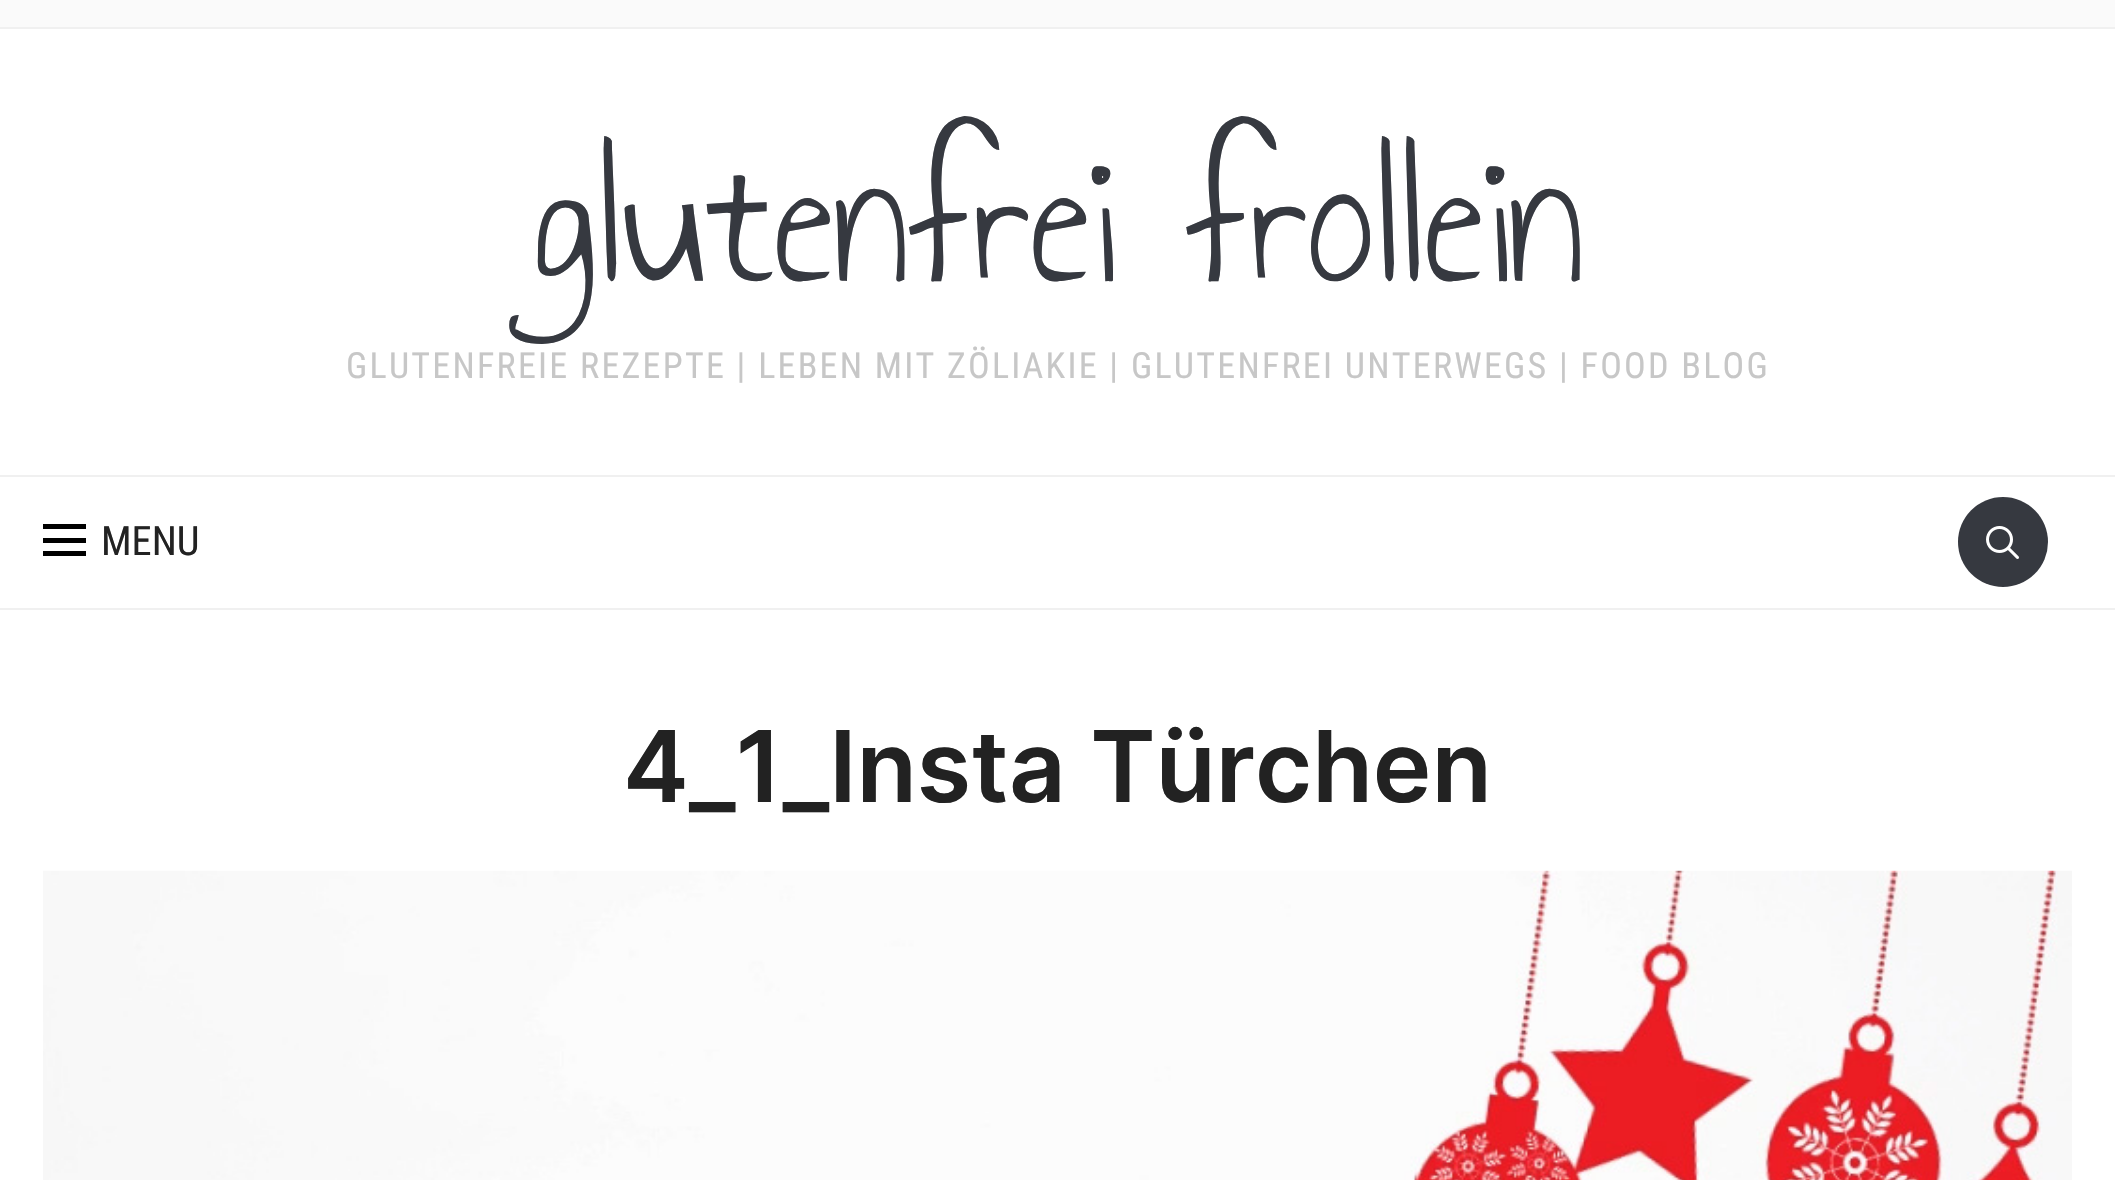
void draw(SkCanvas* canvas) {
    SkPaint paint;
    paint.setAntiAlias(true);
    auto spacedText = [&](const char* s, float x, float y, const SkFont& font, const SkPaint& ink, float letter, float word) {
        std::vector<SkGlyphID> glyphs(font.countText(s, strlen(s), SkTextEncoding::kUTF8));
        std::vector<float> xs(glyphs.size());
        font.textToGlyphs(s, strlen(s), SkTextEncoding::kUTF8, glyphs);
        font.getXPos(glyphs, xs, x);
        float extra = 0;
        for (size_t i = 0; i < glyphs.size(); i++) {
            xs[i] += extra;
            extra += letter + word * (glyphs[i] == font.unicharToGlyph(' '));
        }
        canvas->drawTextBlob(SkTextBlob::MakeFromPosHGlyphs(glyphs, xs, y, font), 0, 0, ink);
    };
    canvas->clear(0xFFFFFFFF);
    paint.setColor(0xFFFAFAFA);
    canvas->drawRect(SkRect::MakeXYWH(0, 0, 2115, 27), paint);
    paint.setColor(0xFFF0F0F0);
    canvas->drawRect(SkRect::MakeXYWH(0, 27, 2115, 2), paint);
    SkFont font1(fontMgr->matchFamilyStyle("Annie Use Your Telescope", SkFontStyle::Normal()), 191.25f);
    font1.setSubpixel(true);
    paint.setColor(0xFF363940);
    spacedText("glutenfrei frollein", 532, 281, font1, paint, -2.25f, 0);
    SkFont font2(fontMgr->matchFamilyStyle("Roboto Condensed", SkFontStyle::Normal()), 36);
    font2.setSubpixel(true);
    paint.setColor(0xFFC7C7C7);
    spacedText("GLUTENFREIE REZEPTE | LEBEN MIT ZÖLIAKIE | GLUTENFREI UNTERWEGS | FOOD BLOG", 346, 378, font2, paint, 2.25f, 0);
    paint.setColor(0xFFF0F0F0);
    canvas->drawRect(SkRect::MakeXYWH(0, 475, 2115, 2), paint);
    canvas->drawRect(SkRect::MakeXYWH(0, 608, 2115, 2), paint);
    paint.setColor(0xFF000000);
    canvas->drawRect(SkRect::MakeXYWH(43, 524, 43, 5), paint);
    canvas->drawRect(SkRect::MakeXYWH(43, 538, 43, 5), paint);
    canvas->drawRect(SkRect::MakeXYWH(43, 551, 43, 5), paint);
    SkFont font3(fontMgr->matchFamilyStyle("Roboto Condensed", SkFontStyle::Normal()), 40.5f);
    font3.setSubpixel(true);
    paint.setColor(0xFF222222);
    canvas->drawString("MENU", 101, 555, font3, paint);
    paint.setColor(0xFF363940);
    canvas->drawCircle(2003, 542, 45, paint);
    canvas->drawImageRect(SkImages::DeferredFromEncodedData(SkData::MakeFromFileName("img1.png")), SkRect::MakeXYWH(1986, 526, 33, 33), SkSamplingOptions());
    SkFont font4(fontMgr->matchFamilyStyle("Inter", SkFontStyle(600, SkFontStyle::kNormal_Width, SkFontStyle::kUpright_Slant)), 99);
    font4.setSubpixel(true);
    paint.setColor(0xFF222222);
    canvas->drawString("4_1_Insta Türchen", 623, 802, font4, paint);
    canvas->drawImageRect(SkImages::DeferredFromEncodedData(SkData::MakeFromFileName("img2.png")), SkRect::MakeXYWH(43, 870, 2029, 310), SkSamplingOptions());
}
